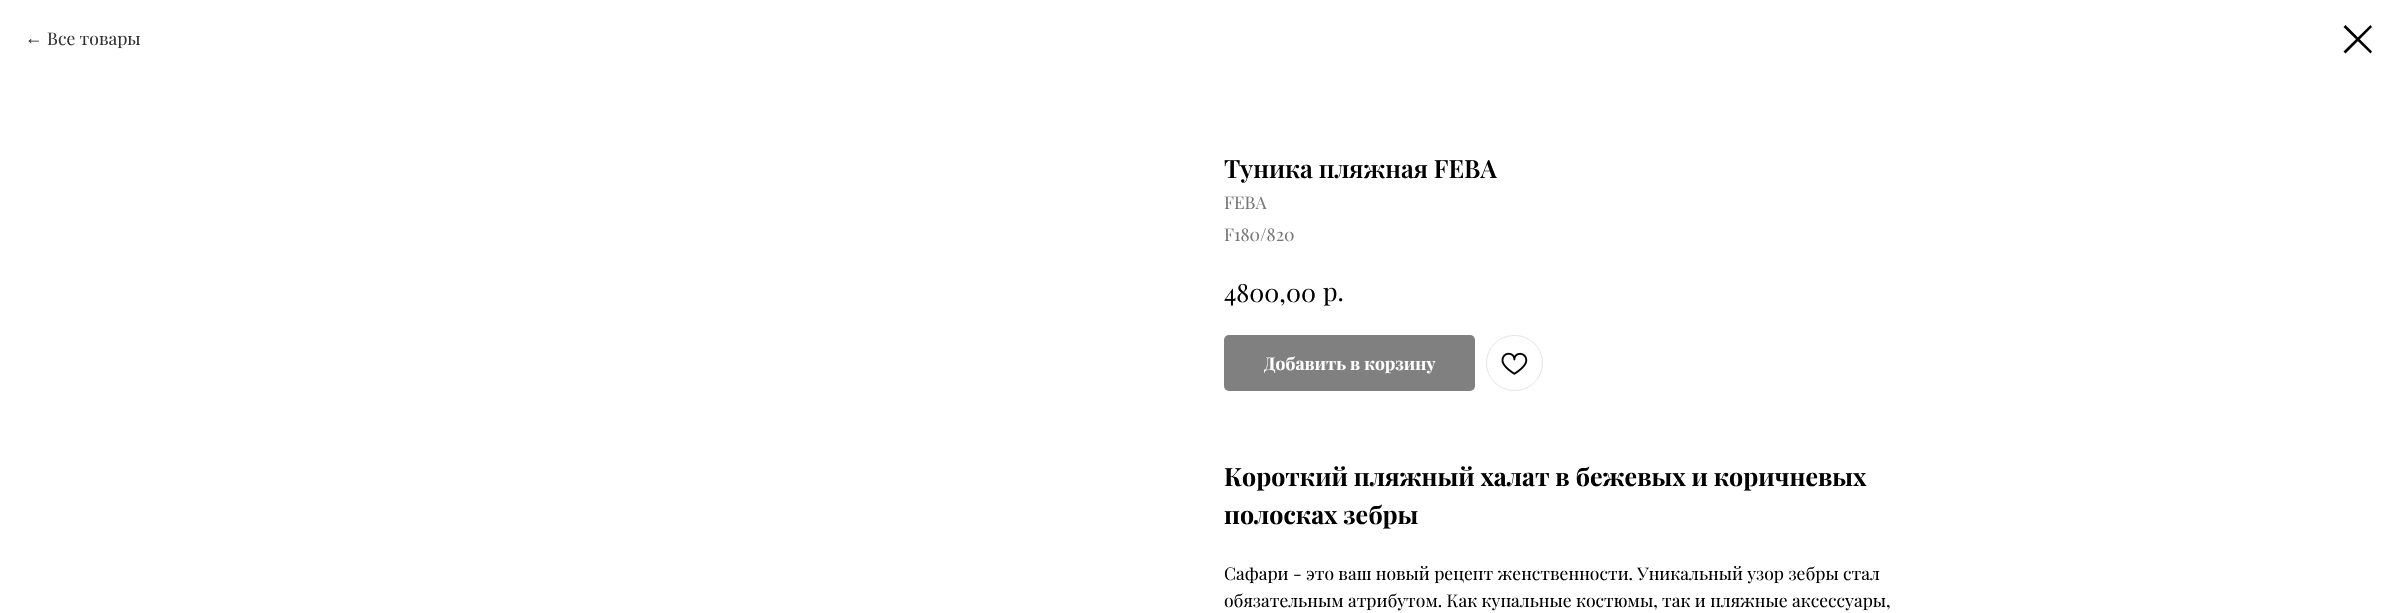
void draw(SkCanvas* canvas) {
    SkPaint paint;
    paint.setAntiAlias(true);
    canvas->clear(0xFFFFFFFF);
    SkFont font1(fontMgr->matchFamilyStyle("Liberation Sans", SkFontStyle::Normal()), 17.5f);
    font1.setSubpixel(true);
    paint.setColor(0xFF333333);
    canvas->drawString("←", 25, 44, font1, paint);
    SkFont font2(fontMgr->matchFamilyStyle("Playfair Display", SkFontStyle::Normal()), 17.5f);
    font2.setSubpixel(true);
    canvas->drawString("Все товары", 47, 45, font2, paint);
    paint.setColor(0xFF000000);
    canvas->drawPath(SkPathBuilder(SkPathFillType::kEvenOdd).moveTo(2343.5f, 27).lineTo(2345.5f, 25).lineTo(2372, 51.5f).lineTo(2370.5f, 53.5f).close().detach(), paint);
    canvas->drawPath(SkPathBuilder(SkPathFillType::kEvenOdd).moveTo(2370.5f, 25).lineTo(2372, 27).lineTo(2345.5f, 53.5f).lineTo(2343.5f, 51.5f).close().detach(), paint);
    SkFont font3(fontMgr->matchFamilyStyle("Playfair Display", SkFontStyle(600, SkFontStyle::kNormal_Width, SkFontStyle::kUpright_Slant)), 25);
    font3.setSubpixel(true);
    canvas->drawString("Туника пляжная FEBA", 1224, 178, font3, paint);
    paint.setColor(0xFF777777);
    canvas->drawString("FEBA", 1224, 209, font2, paint);
    canvas->drawString("F180/820", 1224, 241, font2, paint);
    SkFont font4(fontMgr->matchFamilyStyle("Playfair Display", SkFontStyle::Normal()), 25);
    font4.setSubpixel(true);
    paint.setColor(0xFF000000);
    canvas->drawString("4800,00", 1224, 302, font4, paint);
    canvas->drawString("р.", 1323, 301, font4, paint);
    paint.setColor(0xFF808080);
    canvas->drawRoundRect(SkRect::MakeXYWH(1224, 335, 251, 56), 5, 5, paint);
    SkFont font5(fontMgr->matchFamilyStyle("Playfair Display", SkFontStyle::Bold()), 17.5f);
    font5.setSubpixel(true);
    paint.setColor(0xFFFFFFFF);
    canvas->drawString("Добавить в корзину", 1264, 370, font5, paint);
    paint.setStyle(SkPaint::kStroke_Style);
    paint.setStrokeWidth(1);
    paint.setColor(0xFFE4E4E4);
    canvas->drawRoundRect(SkRect::MakeXYWH(1486.5f, 335.5f, 56, 55), 27.5f, 27.5f, paint);
    canvas->drawImageRect(SkImages::DeferredFromEncodedData(SkData::MakeFromFileName("img1.png")), SkRect::MakeXYWH(1501, 352, 27, 23), SkSamplingOptions());
    SkFont font6(fontMgr->matchFamilyStyle("Playfair Display", SkFontStyle::Bold()), 25);
    font6.setSubpixel(true);
    paint.setStyle(SkPaint::kFill_Style);
    paint.setColor(0xFF000000);
    canvas->drawString("Короткий пляжный халат в бежевых и коричневых", 1224, 486, font6, paint);
    canvas->drawString("полосках зебры", 1224, 524, font6, paint);
    canvas->drawString("Сафари - это ваш новый рецепт женственности. Уникальный узор зебры стал", 1224, 580, font2, paint);
    canvas->drawString("обязательным атрибутом. Как купальные костюмы, так и пляжные аксессуары,", 1224, 607, font2, paint);
}
